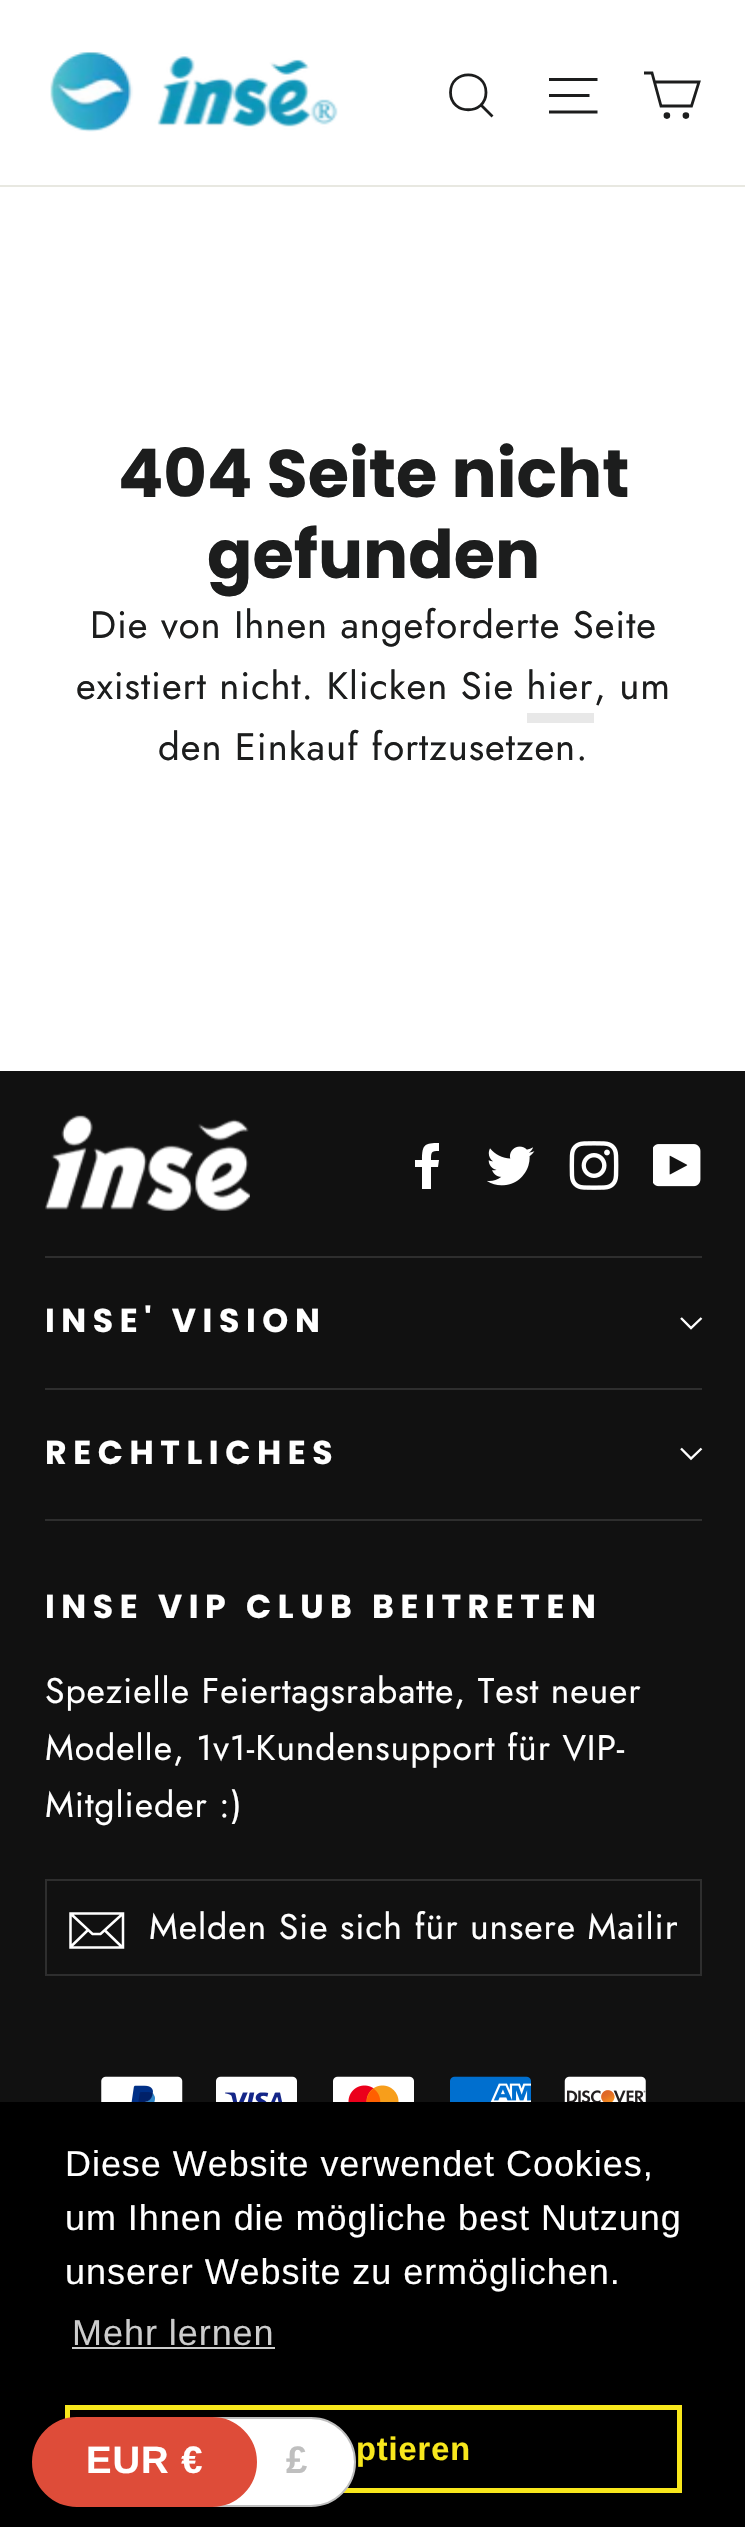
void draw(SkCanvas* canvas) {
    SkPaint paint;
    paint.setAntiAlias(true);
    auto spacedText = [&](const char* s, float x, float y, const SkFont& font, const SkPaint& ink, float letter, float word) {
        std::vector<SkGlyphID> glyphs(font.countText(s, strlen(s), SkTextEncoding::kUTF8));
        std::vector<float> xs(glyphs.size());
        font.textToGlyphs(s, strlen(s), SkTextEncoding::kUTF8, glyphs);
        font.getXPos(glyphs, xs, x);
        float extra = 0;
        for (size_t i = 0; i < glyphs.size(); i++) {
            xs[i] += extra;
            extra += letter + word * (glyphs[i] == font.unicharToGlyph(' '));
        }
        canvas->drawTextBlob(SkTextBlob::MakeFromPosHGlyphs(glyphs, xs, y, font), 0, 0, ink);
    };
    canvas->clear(0xFFFFFFFF);
    paint.setColor(0xFFE8E8E1);
    canvas->drawRect(SkRect::MakeXYWH(0, 185, 745, 2), paint);
    canvas->drawImageRect(SkImages::DeferredFromEncodedData(SkData::MakeFromFileName("img1.png")), SkRect::MakeXYWH(50, 52, 288, 80), SkSamplingOptions());
    paint.setStyle(SkPaint::kStroke_Style);
    paint.setStrokeWidth(2.8f);
    paint.setColor(0xFF1C1D1D);
    canvas->drawPath(SkPathBuilder().moveTo(486, 92.5f).cubicTo(486, 115.5f, 450.5f, 115.5f, 450.5f, 92.5f).cubicTo(450.5f, 69, 486, 69, 486, 92.5f).close().moveTo(492.5f, 116.5f).lineTo(481, 105).detach(), paint);
    canvas->drawPath(SkPathBuilder().moveTo(549, 79.5f).lineTo(597.5f, 79.5f).moveTo(549, 95.5f).lineTo(589.5f, 95.5f).moveTo(549, 112).lineTo(597.5f, 112).detach(), paint);
    canvas->drawPath(SkPathBuilder().moveTo(654.5f, 82).lineTo(699, 82).lineTo(691.5f, 106).lineTo(661, 106).lineTo(652, 73).lineTo(644, 73).detach(), paint);
    paint.setStyle(SkPaint::kFill_Style);
    canvas->drawCircle(666.9f, 115.6f, 1.9f, paint);
    paint.setStyle(SkPaint::kStroke_Style);
    canvas->drawCircle(666.9f, 115.6f, 1.9f, paint);
    paint.setStyle(SkPaint::kFill_Style);
    canvas->drawCircle(685.9f, 115.6f, 1.9f, paint);
    paint.setStyle(SkPaint::kStroke_Style);
    canvas->drawCircle(685.9f, 115.6f, 1.9f, paint);
    SkFont font1(fontMgr->matchFamilyStyle("Poppins", SkFontStyle::Bold()), 67);
    font1.setSubpixel(true);
    paint.setStyle(SkPaint::kFill_Style);
    canvas->drawString("404 Seite nicht", 118, 497, font1, paint);
    canvas->drawString("gefunden", 207, 578, font1, paint);
    SkFont font2(fontMgr->matchFamilyStyle("Jost", SkFontStyle::Normal()), 38.25f);
    font2.setSubpixel(true);
    spacedText("Die von Ihnen angeforderte Seite", 90, 638, font2, paint, 0.95f, 0);
    spacedText("existiert nicht. Klicken Sie hier", 76, 699, font2, paint, 0.95f, 0);
    spacedText(", um", 594, 699, font2, paint, 0.95f, 0);
    paint.setColor(0xFFE8E8E8);
    canvas->drawRect(SkRect::MakeXYWH(527, 713, 67, 10), paint);
    paint.setColor(0xFF1C1D1D);
    spacedText("den Einkauf fortzusetzen.", 158, 760, font2, paint, 0.95f, 0);
    paint.setColor(0xFF111111);
    canvas->drawRect(SkRect::MakeXYWH(0, 1071, 745, 1031), paint);
    canvas->drawImageRect(SkImages::DeferredFromEncodedData(SkData::MakeFromFileName("img2.png")), SkRect::MakeXYWH(45, 1115, 205, 96), SkSamplingOptions());
    paint.setColor(0xFFFFFFFF);
    canvas->drawPath(SkPathBuilder().moveTo(431, 1189).lineTo(431, 1167).lineTo(438, 1167).lineTo(439, 1160).lineTo(431, 1160).cubicTo(431, 1152, 431, 1151, 439, 1151).lineTo(439, 1143).cubicTo(425, 1143, 422, 1144, 422, 1160).lineTo(415, 1160).lineTo(415, 1167).lineTo(422, 1167).lineTo(422, 1189).close().detach(), paint);
    canvas->drawImageRect(SkImages::DeferredFromEncodedData(SkData::MakeFromFileName("img3.png")), SkRect::MakeXYWH(487, 1146, 48, 40), SkSamplingOptions());
    canvas->drawImageRect(SkImages::DeferredFromEncodedData(SkData::MakeFromFileName("img4.png")), SkRect::MakeXYWH(569, 1141, 50, 49), SkSamplingOptions());
    canvas->drawImageRect(SkImages::DeferredFromEncodedData(SkData::MakeFromFileName("img5.png")), SkRect::MakeXYWH(653, 1144, 48, 43), SkSamplingOptions());
    paint.setColor(0xFF2E2E2E);
    canvas->drawRect(SkRect::MakeXYWH(45, 1256, 657, 2), paint);
    SkFont font3(fontMgr->matchFamilyStyle("Poppins", SkFontStyle::Bold()), 33.1f);
    font3.setSubpixel(true);
    paint.setColor(0xFFFFFFFF);
    spacedText("INSE' VISION", 45, 1332, font3, paint, 6.6f, 0);
    paint.setStyle(SkPaint::kStroke_Style);
    paint.setStrokeWidth(2.4f);
    canvas->drawPath(SkPathBuilder().moveTo(681, 1318).lineTo(691, 1328).lineTo(701.5f, 1318).detach(), paint);
    paint.setStyle(SkPaint::kFill_Style);
    paint.setColor(0xFF2E2E2E);
    canvas->drawRect(SkRect::MakeXYWH(45, 1388, 657, 2), paint);
    paint.setColor(0xFFFFFFFF);
    spacedText("RECHTLICHES", 45, 1464, font3, paint, 6.6f, 0);
    paint.setStyle(SkPaint::kStroke_Style);
    canvas->drawPath(SkPathBuilder().moveTo(681, 1448.5f).lineTo(691, 1458.5f).lineTo(701.5f, 1448.5f).detach(), paint);
    paint.setStyle(SkPaint::kFill_Style);
    paint.setColor(0xFF2E2E2E);
    canvas->drawRect(SkRect::MakeXYWH(45, 1519, 657, 2), paint);
    paint.setColor(0xFFFFFFFF);
    spacedText("INSE VIP CLUB BEITRETEN", 45, 1618, font3, paint, 6.6f, 0);
    SkFont font4(fontMgr->matchFamilyStyle("Jost", SkFontStyle::Normal()), 35.6f);
    font4.setSubpixel(true);
    spacedText("Spezielle Feiertagsrabatte, Test neuer", 45, 1703, font4, paint, 0.9f, 0);
    spacedText("Modelle, 1v1-Kundensupport für VIP-", 45, 1760, font4, paint, 0.9f, 0);
    spacedText("Mitglieder :)", 45, 1817, font4, paint, 0.9f, 0);
    paint.setStyle(SkPaint::kStroke_Style);
    paint.setStrokeWidth(2);
    paint.setColor(0xFF2E2E2E);
    canvas->drawRect(SkRect::MakeXYWH(46, 1880, 655, 95), paint);
    paint.setStrokeWidth(2.5f);
    paint.setColor(0xFFFFFFFF);
    canvas->drawPath(SkPathBuilder().moveTo(123, 1947.5f).lineTo(70.5f, 1947.5f).lineTo(70.5f, 1913.5f).lineTo(123, 1913.5f).close().moveTo(70.5f, 1913.5f).lineTo(92.5f, 1934).lineTo(100.5f, 1934).lineTo(123, 1913.5f).moveTo(88, 1930).lineTo(71, 1946.5f).moveTo(122.5f, 1947.5f).lineTo(104.5f, 1930).detach(), paint);
    canvas->save();
    canvas->clipRect(SkRect::MakeXYWH(149, 1901, 528, 52));
    paint.setStyle(SkPaint::kFill_Style);
    spacedText("Melden Sie sich für unsere Mailin", 149, 1939, font4, paint, 0.9f, 0);
    canvas->restore();
    canvas->drawImageRect(SkImages::DeferredFromEncodedData(SkData::MakeFromFileName("img6.png")), SkRect::MakeXYWH(101, 2076, 82, 26), SkSamplingOptions());
    canvas->drawImageRect(SkImages::DeferredFromEncodedData(SkData::MakeFromFileName("img7.png")), SkRect::MakeXYWH(216, 2076, 81, 26), SkSamplingOptions());
    canvas->drawImageRect(SkImages::DeferredFromEncodedData(SkData::MakeFromFileName("img8.png")), SkRect::MakeXYWH(333, 2076, 81, 26), SkSamplingOptions());
    canvas->drawImageRect(SkImages::DeferredFromEncodedData(SkData::MakeFromFileName("img9.png")), SkRect::MakeXYWH(450, 2076, 81, 26), SkSamplingOptions());
    canvas->drawImageRect(SkImages::DeferredFromEncodedData(SkData::MakeFromFileName("img10.png")), SkRect::MakeXYWH(564, 2076, 82, 26), SkSamplingOptions());
    paint.setColor(0xFF000000);
    canvas->drawRect(SkRect::MakeXYWH(0, 2102, 745, 425), paint);
    SkFont font5(fontMgr->matchFamilyStyle("Liberation Sans", SkFontStyle::Normal()), 36);
    font5.setSubpixel(true);
    paint.setColor(0xFFFFFFFF);
    spacedText("Diese Website verwendet Cookies,", 65, 2176, font5, paint, 0.95f, 0);
    spacedText("um Ihnen die mögliche best Nutzung", 65, 2230, font5, paint, 0.95f, 0);
    spacedText("unserer Website zu ermöglichen.", 65, 2284, font5, paint, 0.95f, 0);
    paint.setColor(0xFFCCCCCC);
    spacedText("Mehr lernen", 72, 2345, font5, paint, 0.95f, 0);
    canvas->drawRect(SkRect::MakeXYWH(72, 2347, 203, 2), paint);
    paint.setStyle(SkPaint::kStroke_Style);
    paint.setStrokeWidth(5);
    paint.setColor(0xFFF8E71C);
    canvas->drawRect(SkRect::MakeXYWH(67.5f, 2407.5f, 612, 83), paint);
    SkFont font6(fontMgr->matchFamilyStyle("Liberation Sans", SkFontStyle::Bold()), 32.5f);
    font6.setSubpixel(true);
    paint.setStyle(SkPaint::kFill_Style);
    spacedText("ptieren", 356, 2460, font6, paint, 0.95f, 0);
    paint.setColor(0xFFFFFFFF);
    canvas->drawRoundRect(SkRect::MakeXYWH(154, 2418, 201, 88), 44, 44, paint);
    paint.setStyle(SkPaint::kStroke_Style);
    paint.setStrokeWidth(2);
    paint.setColor(0xFFBFBFBF);
    canvas->drawRoundRect(SkRect::MakeXYWH(154, 2418, 201, 88), 44, 44, paint);
    paint.setStyle(SkPaint::kFill_Style);
    paint.setColor(0xFFDE4C39);
    canvas->drawRoundRect(SkRect::MakeXYWH(33, 2418, 223, 88), 44, 44, paint);
    paint.setStyle(SkPaint::kStroke_Style);
    canvas->drawRoundRect(SkRect::MakeXYWH(33, 2418, 223, 88), 44, 44, paint);
    SkFont font7(fontMgr->matchFamilyStyle("Liberation Sans", SkFontStyle::Bold()), 38.25f);
    font7.setSubpixel(true);
    paint.setStyle(SkPaint::kFill_Style);
    paint.setColor(0xFFFFFFFF);
    spacedText("EUR €", 86, 2473, font7, paint, 0.95f, 0);
    paint.setColor(0xFFBFBFBF);
    spacedText("£", 286, 2473, font7, paint, 0.95f, 0);
}
